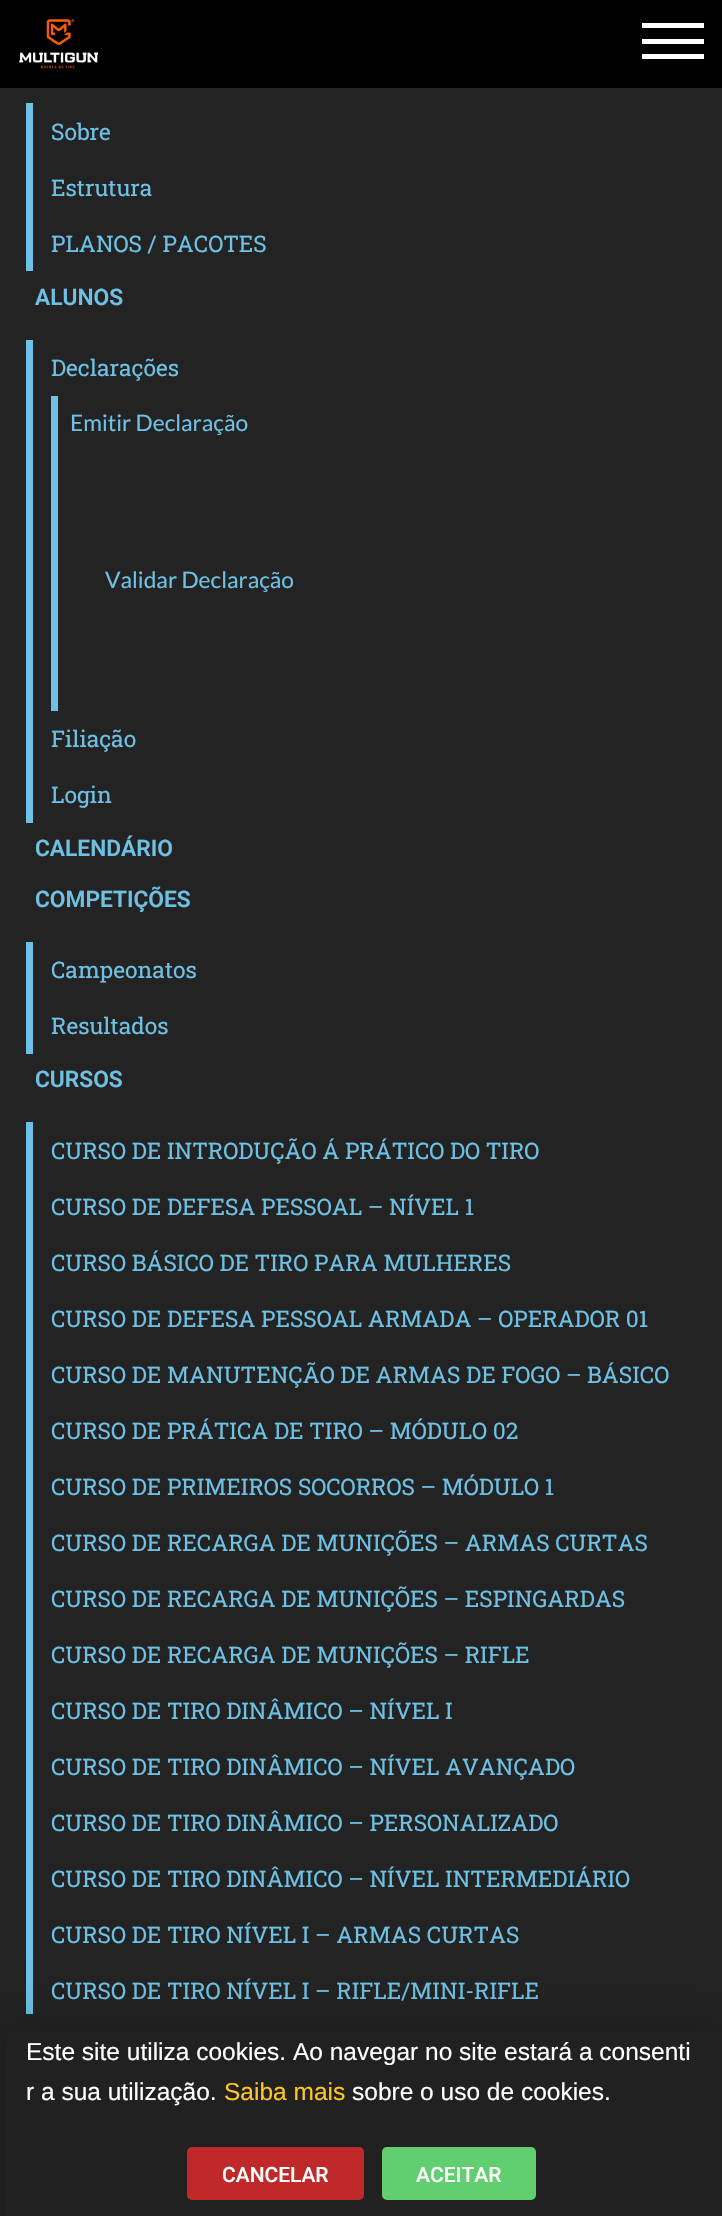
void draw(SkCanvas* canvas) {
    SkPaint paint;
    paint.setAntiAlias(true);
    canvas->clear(0xFF232323);
    paint.setColor(0xFF000000);
    canvas->drawRect(SkRect::MakeXYWH(0, 0, 722, 88), paint);
    canvas->drawImageRect(SkImages::DeferredFromEncodedData(SkData::MakeFromFileName("img1.png")), SkRect::MakeXYWH(19, 19, 79, 50), SkSamplingOptions());
    paint.setColor(0xFFFFFFFF);
    canvas->drawRect(SkRect::MakeXYWH(642, 39, 62, 5), paint);
    canvas->drawRect(SkRect::MakeXYWH(642, 23, 62, 5), paint);
    canvas->drawRect(SkRect::MakeXYWH(642, 54, 62, 5), paint);
    paint.setColor(0xFF6EC1E4);
    canvas->drawRect(SkRect::MakeXYWH(26, 103, 7, 168), paint);
    SkFont font1(fontMgr->matchFamilyStyle("Roboto Slab", SkFontStyle::Normal()), 22.75f);
    font1.setSubpixel(true);
    canvas->drawString("Sobre", 51, 140, font1, paint);
    canvas->drawString("Estrutura", 51, 196, font1, paint);
    canvas->drawString("PLANOS / PACOTES", 51, 252, font1, paint);
    SkFont font2(fontMgr->matchFamilyStyle("Roboto", SkFontStyle(600, SkFontStyle::kNormal_Width, SkFontStyle::kUpright_Slant)), 22.75f);
    font2.setSubpixel(true);
    canvas->drawString("ALUNOS", 35, 305, font2, paint);
    canvas->drawRect(SkRect::MakeXYWH(26, 340, 7, 483), paint);
    canvas->drawString("Declarações", 51, 376, font1, paint);
    canvas->drawRect(SkRect::MakeXYWH(51, 396, 7, 315), paint);
    SkFont font3(fontMgr->matchFamilyStyle("Lato", SkFontStyle::Normal()), 22.75f);
    font3.setSubpixel(true);
    canvas->drawString("Emitir Declaração", 70, 431, font3, paint);
    canvas->drawString("Validar Declaração", 105, 588, font3, paint);
    canvas->drawString("Filiação", 51, 747, font1, paint);
    canvas->drawString("Login", 51, 803, font1, paint);
    canvas->drawString("CALENDÁRIO", 35, 856, font2, paint);
    canvas->drawString("COMPETIÇÕES", 35, 907, font2, paint);
    canvas->drawRect(SkRect::MakeXYWH(26, 942, 7, 112), paint);
    canvas->drawString("Campeonatos", 51, 978, font1, paint);
    canvas->drawString("Resultados", 51, 1034, font1, paint);
    canvas->drawString("CURSOS", 35, 1087, font2, paint);
    canvas->drawRect(SkRect::MakeXYWH(26, 1122, 7, 892), paint);
    canvas->drawString("CURSO DE INTRODUÇÃO Á PRÁTICO DO TIRO", 51, 1159, font1, paint);
    canvas->drawString("CURSO DE DEFESA PESSOAL – NÍVEL 1", 51, 1215, font1, paint);
    canvas->drawString("CURSO BÁSICO DE TIRO PARA MULHERES", 51, 1271, font1, paint);
    canvas->drawString("CURSO DE DEFESA PESSOAL ARMADA – OPERADOR 01", 51, 1327, font1, paint);
    canvas->drawString("CURSO DE MANUTENÇÃO DE ARMAS DE FOGO – BÁSICO", 51, 1383, font1, paint);
    canvas->drawString("CURSO DE PRÁTICA DE TIRO – MÓDULO 02", 51, 1439, font1, paint);
    canvas->drawString("CURSO DE PRIMEIROS SOCORROS – MÓDULO 1", 51, 1495, font1, paint);
    canvas->drawString("CURSO DE RECARGA DE MUNIÇÕES – ARMAS CURTAS", 51, 1551, font1, paint);
    canvas->drawString("CURSO DE RECARGA DE MUNIÇÕES – ESPINGARDAS", 51, 1607, font1, paint);
    canvas->drawString("CURSO DE RECARGA DE MUNIÇÕES – RIFLE", 51, 1663, font1, paint);
    canvas->drawString("CURSO DE TIRO DINÂMICO – NÍVEL I", 51, 1719, font1, paint);
    canvas->drawString("CURSO DE TIRO DINÂMICO – NÍVEL AVANÇADO", 51, 1775, font1, paint);
    canvas->drawString("CURSO DE TIRO DINÂMICO – PERSONALIZADO", 51, 1831, font1, paint);
    canvas->drawString("CURSO DE TIRO DINÂMICO – NÍVEL INTERMEDIÁRIO", 51, 1887, font1, paint);
    canvas->drawString("CURSO DE TIRO NÍVEL I – ARMAS CURTAS", 51, 1943, font1, paint);
    canvas->drawString("CURSO DE TIRO NÍVEL I – RIFLE/MINI-RIFLE", 51, 1999, font1, paint);
    paint.setColor(0x33000000);
    paint.setMaskFilter(SkMaskFilter::MakeBlur(kNormal_SkBlurStyle, 20));
    canvas->drawRect(SkRect::MakeXYWH(-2, 2023, 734, 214), paint);
    paint.setMaskFilter(nullptr);
    paint.setColor(0xFF212121);
    canvas->drawRect(SkRect::MakeXYWH(6, 2031, 716, 185), paint);
    SkFont font4(fontMgr->matchFamilyStyle("Liberation Sans", SkFontStyle::Normal()), 24.5f);
    font4.setSubpixel(true);
    paint.setColor(0xFFFFFFFF);
    canvas->drawString("Este site utiliza cookies. Ao navegar no site estará a consenti", 26, 2060, font4, paint);
    canvas->drawString("r a sua utilização.", 26, 2100, font4, paint);
    paint.setColor(0xFFFEC726);
    canvas->drawString("Saiba mais", 224, 2100, font4, paint);
    paint.setColor(0xFFFFFFFF);
    canvas->drawString("sobre o uso de cookies.", 352, 2100, font4, paint);
    paint.setColor(0xFFBF2929);
    canvas->drawRoundRect(SkRect::MakeXYWH(187, 2147, 177, 53), 5, 5, paint);
    SkFont font5(fontMgr->matchFamilyStyle("Roboto", SkFontStyle(500, SkFontStyle::kNormal_Width, SkFontStyle::kUpright_Slant)), 21);
    font5.setSubpixel(true);
    paint.setColor(0xFFFFFFFF);
    canvas->drawString("CANCELAR", 222, 2182, font5, paint);
    paint.setColor(0xFF61CE70);
    canvas->drawRoundRect(SkRect::MakeXYWH(382, 2147, 154, 53), 5, 5, paint);
    paint.setColor(0xFFFFFFFF);
    canvas->drawString("ACEITAR", 416, 2182, font5, paint);
}
